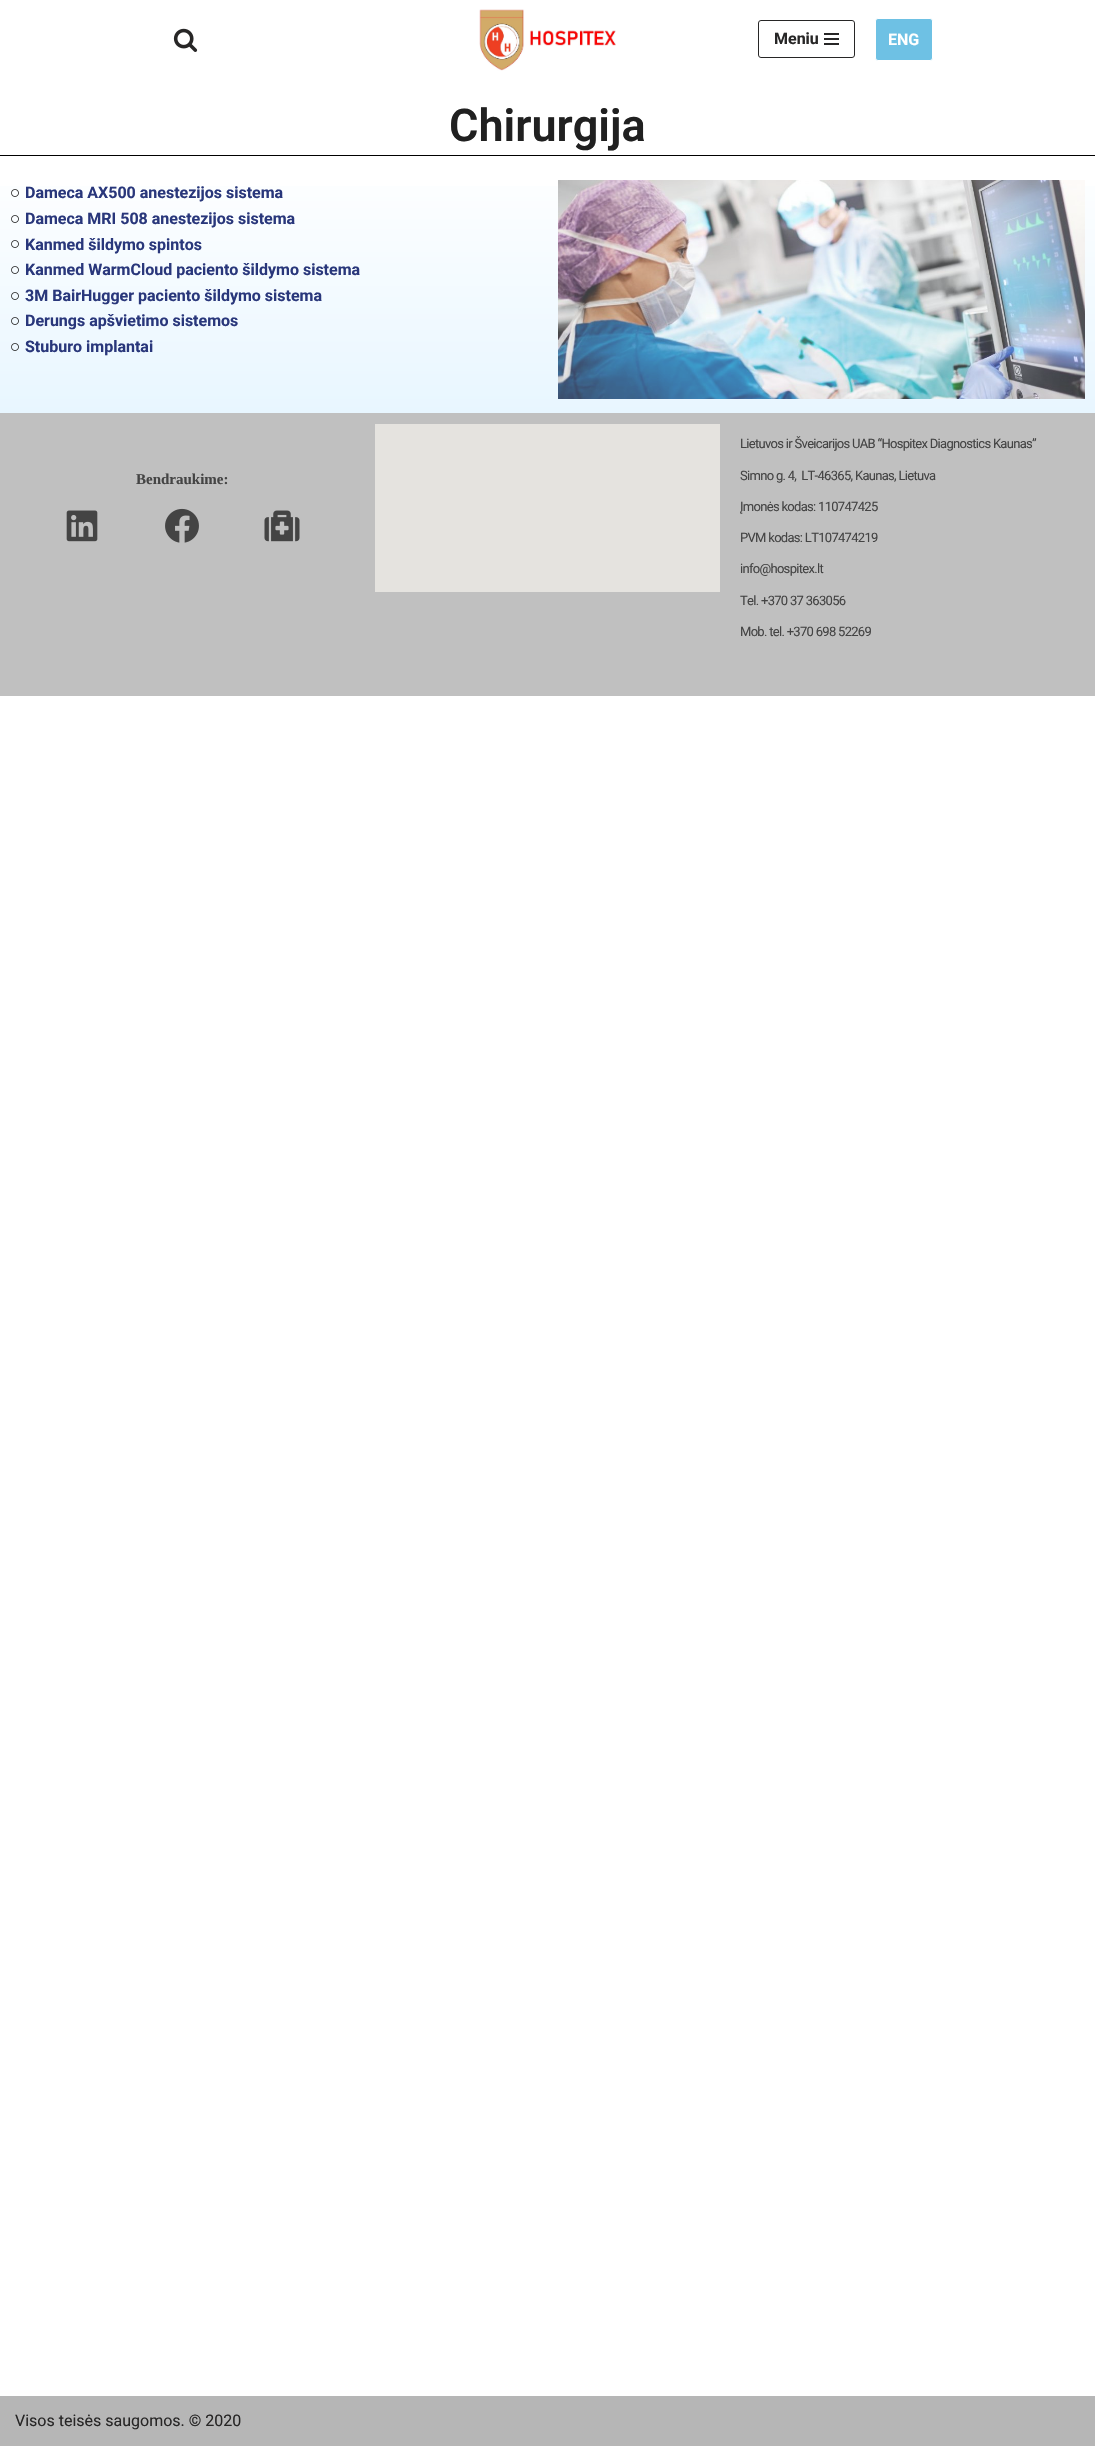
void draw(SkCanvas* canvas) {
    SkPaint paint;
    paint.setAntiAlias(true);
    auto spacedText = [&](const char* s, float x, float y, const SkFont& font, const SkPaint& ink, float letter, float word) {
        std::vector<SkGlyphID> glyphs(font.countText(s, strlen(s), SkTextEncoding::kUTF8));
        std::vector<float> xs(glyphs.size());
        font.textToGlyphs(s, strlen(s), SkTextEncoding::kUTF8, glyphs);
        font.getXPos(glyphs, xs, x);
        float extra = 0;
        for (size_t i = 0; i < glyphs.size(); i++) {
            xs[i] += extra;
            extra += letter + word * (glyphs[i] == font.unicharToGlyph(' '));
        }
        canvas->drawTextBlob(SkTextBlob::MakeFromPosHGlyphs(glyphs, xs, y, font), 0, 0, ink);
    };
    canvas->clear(0xFFFFFFFF);
    canvas->drawImageRect(SkImages::DeferredFromEncodedData(SkData::MakeFromFileName("img1.png")), SkRect::MakeXYWH(173, 28, 25, 24), SkSamplingOptions());
    canvas->drawImageRect(SkImages::DeferredFromEncodedData(SkData::MakeFromFileName("img2.png")), SkRect::MakeXYWH(479, 9, 137, 62), SkSamplingOptions());
    paint.setStyle(SkPaint::kStroke_Style);
    paint.setStrokeWidth(1);
    paint.setColor(0xFF272626);
    canvas->drawRoundRect(SkRect::MakeXYWH(758.5f, 20.5f, 96, 37), 2.5f, 2.5f, paint);
    SkFont font1(fontMgr->matchFamilyStyle("Roboto", SkFontStyle::Bold()), 16);
    font1.setSubpixel(true);
    paint.setStyle(SkPaint::kFill_Style);
    canvas->drawString("Meniu", 774, 44, font1, paint);
    canvas->drawRect(SkRect::MakeXYWH(824, 33, 15, 2), paint);
    canvas->drawRect(SkRect::MakeXYWH(824, 38, 15, 2), paint);
    canvas->drawRect(SkRect::MakeXYWH(824, 43, 15, 2), paint);
    paint.setColor(0xFF6EC1E4);
    canvas->drawRoundRect(SkRect::MakeXYWH(875.5f, 18.5f, 57, 42), 2.5f, 2.5f, paint);
    paint.setStyle(SkPaint::kStroke_Style);
    paint.setColor(0xFFFFFFFF);
    canvas->drawRoundRect(SkRect::MakeXYWH(875.5f, 18.5f, 57, 42), 2.5f, 2.5f, paint);
    paint.setStyle(SkPaint::kFill_Style);
    canvas->drawString("ENG", 888, 45, font1, paint);
    SkFont font2(fontMgr->matchFamilyStyle("Roboto", SkFontStyle(600, SkFontStyle::kNormal_Width, SkFontStyle::kUpright_Slant)), 45);
    font2.setSubpixel(true);
    paint.setColor(0xFF202020);
    canvas->drawString("Chirurgija", 449, 141, font2, paint);
    paint.setColor(0xFF000000);
    canvas->drawRect(SkRect::MakeXYWH(0, 155, 1095, 1), paint);
    {
        const SkColor colors[] = {0xFFFFFFFF, 0xFFE8F6FF};
        const float stops[] = {0, 1};
        const SkPoint ends[] = {{548, 158}, {548, 413}};
        paint.setShader(SkGradientShader::MakeLinear(ends, colors, stops, 2, SkTileMode::kClamp));
        paint.setAlpha(255);
    }
    canvas->drawRect(SkRect::MakeXYWH(0, 186, 1095, 227), paint);
    canvas->drawImageRect(SkImages::DeferredFromEncodedData(SkData::MakeFromFileName("img3.png")), SkRect::MakeXYWH(11, 189, 8, 8), SkSamplingOptions());
    paint.setShader(nullptr);
    paint.setColor(0xFF29377B);
    canvas->drawString("Dameca AX500 anestezijos sistema", 25, 198, font1, paint);
    canvas->drawImageRect(SkImages::DeferredFromEncodedData(SkData::MakeFromFileName("img4.png")), SkRect::MakeXYWH(11, 215, 8, 8), SkSamplingOptions());
    canvas->drawString("Dameca MRI 508 anestezijos sistema", 25, 224, font1, paint);
    canvas->drawImageRect(SkImages::DeferredFromEncodedData(SkData::MakeFromFileName("img5.png")), SkRect::MakeXYWH(11, 240, 8, 8), SkSamplingOptions());
    canvas->drawString("Kanmed šildymo spintos", 25, 250, font1, paint);
    canvas->drawImageRect(SkImages::DeferredFromEncodedData(SkData::MakeFromFileName("img6.png")), SkRect::MakeXYWH(11, 266, 8, 8), SkSamplingOptions());
    canvas->drawString("Kanmed WarmCloud paciento šildymo sistema", 25, 275, font1, paint);
    canvas->drawImageRect(SkImages::DeferredFromEncodedData(SkData::MakeFromFileName("img7.png")), SkRect::MakeXYWH(11, 292, 8, 8), SkSamplingOptions());
    canvas->drawString("3M BairHugger paciento šildymo sistema", 25, 301, font1, paint);
    canvas->drawImageRect(SkImages::DeferredFromEncodedData(SkData::MakeFromFileName("img8.png")), SkRect::MakeXYWH(11, 317, 8, 8), SkSamplingOptions());
    canvas->drawString("Derungs apšvietimo sistemos", 25, 326, font1, paint);
    canvas->drawImageRect(SkImages::DeferredFromEncodedData(SkData::MakeFromFileName("img9.png")), SkRect::MakeXYWH(11, 343, 8, 8), SkSamplingOptions());
    canvas->drawString("Stuburo implantai", 25, 352, font1, paint);
    canvas->drawImageRect(SkImages::DeferredFromEncodedData(SkData::MakeFromFileName("img10.png")), SkRect::MakeXYWH(558, 180, 527, 219), SkSamplingOptions());
    paint.setColor(0xFFC0C0C0);
    canvas->drawRect(SkRect::MakeXYWH(0, 413, 1095, 283), paint);
    SkFont font3(fontMgr->matchFamilyStyle("Liberation Serif", SkFontStyle::Bold()), 15);
    font3.setSubpixel(true);
    paint.setColor(0xFF444444);
    canvas->drawString("Bendraukime:", 136, 484, font3, paint);
    canvas->drawImageRect(SkImages::DeferredFromEncodedData(SkData::MakeFromFileName("img11.png")), SkRect::MakeXYWH(66, 510, 32, 32), SkSamplingOptions());
    canvas->drawImageRect(SkImages::DeferredFromEncodedData(SkData::MakeFromFileName("img12.png")), SkRect::MakeXYWH(165, 508, 34, 35), SkSamplingOptions());
    canvas->drawImageRect(SkImages::DeferredFromEncodedData(SkData::MakeFromFileName("img13.png")), SkRect::MakeXYWH(264, 510, 36, 32), SkSamplingOptions());
    paint.setColor(0xFFE5E3DF);
    canvas->drawRect(SkRect::MakeXYWH(375, 424, 345, 168), paint);
    SkFont font4(fontMgr->matchFamilyStyle("Roboto", SkFontStyle::Normal()), 13);
    font4.setSubpixel(true);
    paint.setColor(0xFF444444);
    spacedText("Lietuvos ir Šveicarijos UAB “Hospitex Diagnostics Kaunas”", 740, 448, font4, paint, -0.7f, 0);
    spacedText("Simno g. 4,  LT-46365, Kaunas, Lietuva", 740, 480, font4, paint, -0.7f, 0);
    spacedText("Įmonės kodas: 110747425", 740, 511, font4, paint, -0.7f, 0);
    spacedText("PVM kodas: LT107474219", 740, 542, font4, paint, -0.7f, 0);
    spacedText("info@hospitex.lt", 740, 573, font4, paint, -0.7f, 0);
    spacedText("Tel. +370 37 363056", 740, 605, font4, paint, -0.7f, 0);
    spacedText("Mob. tel. +370 698 52269", 740, 636, font4, paint, -0.7f, 0);
    paint.setColor(0xFFB6B6B6);
    canvas->drawRect(SkRect::MakeXYWH(0, 2396, 1095, 50), paint);
    SkFont font5(fontMgr->matchFamilyStyle("Roboto", SkFontStyle::Normal()), 16);
    font5.setSubpixel(true);
    paint.setColor(0xFF272626);
    canvas->drawString("Visos teisės saugomos. © 2020", 15, 2426, font5, paint);
}
